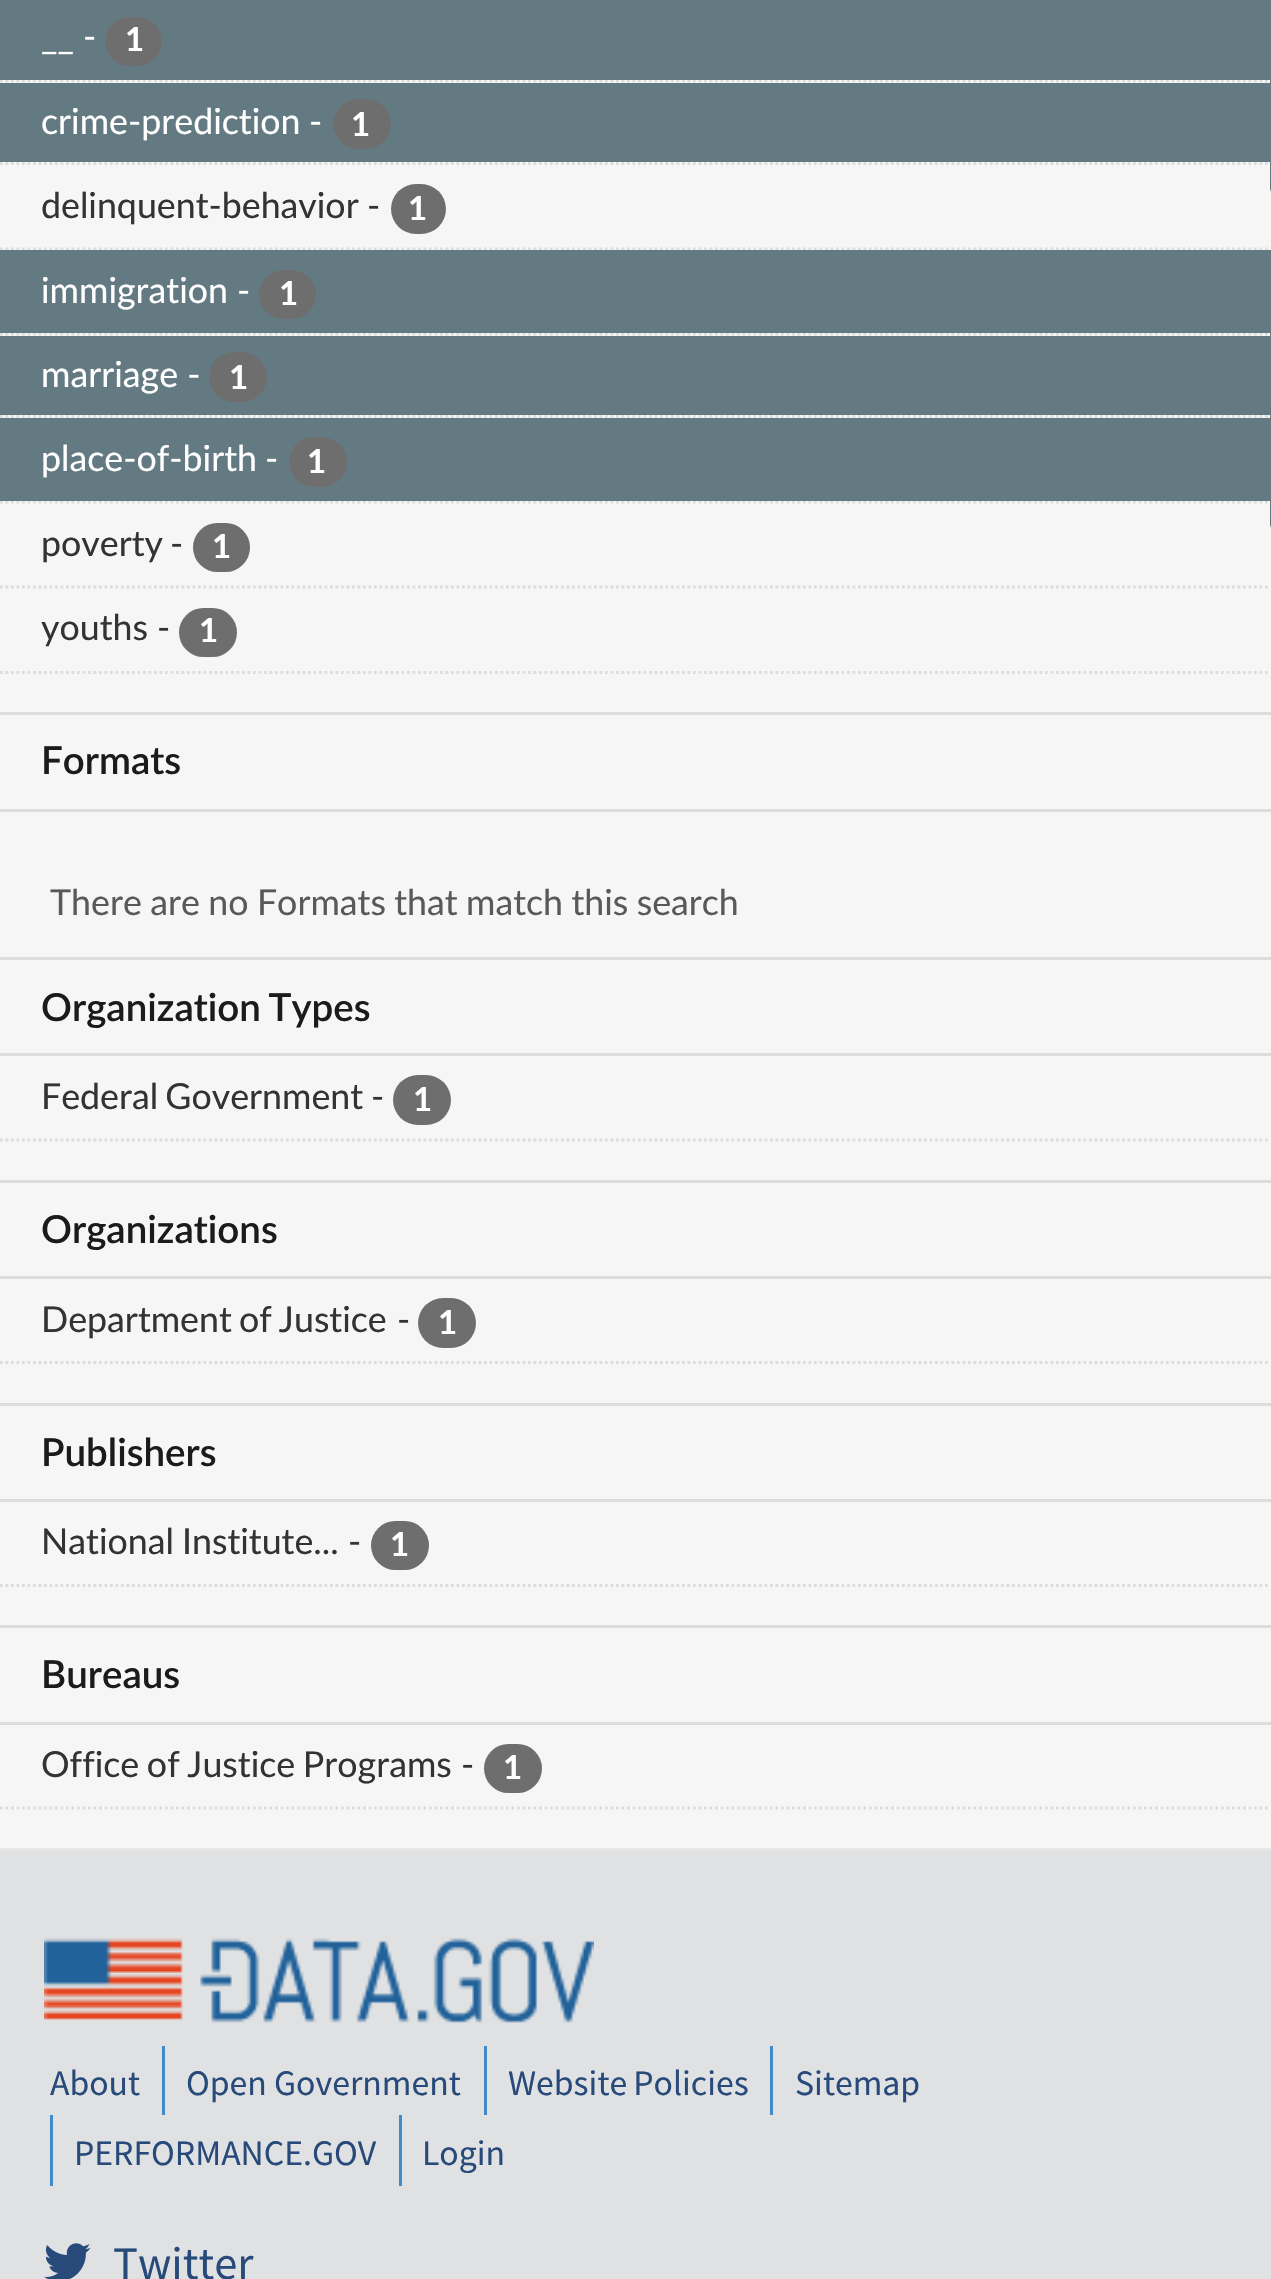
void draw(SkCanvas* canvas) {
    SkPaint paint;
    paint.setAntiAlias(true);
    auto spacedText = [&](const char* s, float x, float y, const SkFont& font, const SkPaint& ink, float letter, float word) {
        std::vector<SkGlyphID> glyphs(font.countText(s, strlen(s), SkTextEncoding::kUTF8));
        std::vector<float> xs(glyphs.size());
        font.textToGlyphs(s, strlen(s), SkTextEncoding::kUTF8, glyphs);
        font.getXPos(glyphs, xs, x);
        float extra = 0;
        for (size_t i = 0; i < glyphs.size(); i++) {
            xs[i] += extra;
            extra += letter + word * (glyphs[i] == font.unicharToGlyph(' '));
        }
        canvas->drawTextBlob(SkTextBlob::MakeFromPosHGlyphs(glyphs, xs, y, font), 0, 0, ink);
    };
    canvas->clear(0xFFF6F6F6);
    paint.setStyle(SkPaint::kStroke_Style);
    paint.setStrokeWidth(2.8f);
    paint.setColor(0xFFDDDDDD);
    paint.setPathEffect(SkDashPathEffect::Make({{2.75f, 2.75f}}, 0));
    canvas->drawPath(SkPathBuilder().moveTo(0, 81).lineTo(1270.5f, 81).detach(), paint);
    paint.setPathEffect(nullptr);
    paint.setStyle(SkPaint::kFill_Style);
    paint.setColor(0xFF647A82);
    canvas->drawRect(SkRect::MakeXYWH(0, 0, 1271, 80), paint);
    SkFont font1(fontMgr->matchFamilyStyle("Lato", SkFontStyle::Normal()), 35.75f);
    font1.setSubpixel(true);
    paint.setColor(0xFFFFFFFF);
    canvas->drawString("__ -", 41, 49, font1, paint);
    paint.setColor(0xFF6E6E6E);
    canvas->drawRoundRect(SkRect::MakeXYWH(105, 17, 57, 49), 24.5f, 24.5f, paint);
    SkFont font2(fontMgr->matchFamilyStyle("Lato", SkFontStyle::Bold()), 33);
    font2.setSubpixel(true);
    paint.setColor(0xFFFFFFFF);
    canvas->drawString("1", 125, 51, font2, paint);
    paint.setColor(0xFF647A82);
    canvas->drawPath(SkPathBuilder().moveTo(1270, 107).lineTo(1270, -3).lineTo(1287, 52).close().detach(), paint);
    paint.setStyle(SkPaint::kStroke_Style);
    paint.setColor(0xFFDDDDDD);
    paint.setPathEffect(SkDashPathEffect::Make({{2.75f, 2.75f}}, 0));
    canvas->drawPath(SkPathBuilder().moveTo(0, 163.5f).lineTo(1270.5f, 163.5f).detach(), paint);
    paint.setPathEffect(nullptr);
    paint.setStyle(SkPaint::kFill_Style);
    paint.setColor(0xFF647A82);
    canvas->drawRect(SkRect::MakeXYWH(0, 83, 1271, 79), paint);
    paint.setColor(0xFFFFFFFF);
    canvas->drawString("crime-prediction", 41, 134, font1, paint);
    canvas->drawString("-", 309, 134, font1, paint);
    paint.setColor(0xFF6E6E6E);
    canvas->drawRoundRect(SkRect::MakeXYWH(333, 99, 58, 50), 25, 25, paint);
    paint.setColor(0xFFFFFFFF);
    canvas->drawString("1", 351, 136, font2, paint);
    paint.setColor(0xFF647A82);
    canvas->drawPath(SkPathBuilder().moveTo(1270, 192).lineTo(1270, 82).lineTo(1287, 138).close().detach(), paint);
    paint.setStyle(SkPaint::kStroke_Style);
    paint.setColor(0xFFDDDDDD);
    paint.setPathEffect(SkDashPathEffect::Make({{2.75f, 2.75f}}, 0));
    canvas->drawPath(SkPathBuilder().moveTo(0, 249).lineTo(1270.5f, 249).detach(), paint);
    paint.setPathEffect(nullptr);
    paint.setStyle(SkPaint::kFill_Style);
    paint.setColor(0xFF333333);
    canvas->drawString("delinquent-behavior", 41, 218, font1, paint);
    canvas->drawString("-", 367, 218, font1, paint);
    paint.setColor(0xFF6E6E6E);
    canvas->drawRoundRect(SkRect::MakeXYWH(391, 184, 55, 50), 25, 25, paint);
    paint.setColor(0xFFFFFFFF);
    canvas->drawString("1", 408, 220, font2, paint);
    paint.setStyle(SkPaint::kStroke_Style);
    paint.setColor(0xFFDDDDDD);
    paint.setPathEffect(SkDashPathEffect::Make({{2.75f, 2.75f}}, 0));
    canvas->drawPath(SkPathBuilder().moveTo(0, 334).lineTo(1270.5f, 334).detach(), paint);
    paint.setPathEffect(nullptr);
    paint.setStyle(SkPaint::kFill_Style);
    paint.setColor(0xFF647A82);
    canvas->drawRect(SkRect::MakeXYWH(0, 250, 1271, 83), paint);
    paint.setColor(0xFFFFFFFF);
    canvas->drawString("immigration", 41, 303, font1, paint);
    canvas->drawString("-", 237, 303, font1, paint);
    paint.setColor(0xFF6E6E6E);
    canvas->drawRoundRect(SkRect::MakeXYWH(259, 270, 57, 49), 24.5f, 24.5f, paint);
    paint.setColor(0xFFFFFFFF);
    canvas->drawString("1", 279, 305, font2, paint);
    paint.setColor(0xFF647A82);
    canvas->drawPath(SkPathBuilder().moveTo(1270, 360).lineTo(1270, 250).lineTo(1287, 305).close().detach(), paint);
    paint.setStyle(SkPaint::kStroke_Style);
    paint.setColor(0xFFDDDDDD);
    paint.setPathEffect(SkDashPathEffect::Make({{2.75f, 2.75f}}, 0));
    canvas->drawPath(SkPathBuilder().moveTo(0, 416.5f).lineTo(1270.5f, 416.5f).detach(), paint);
    paint.setPathEffect(nullptr);
    paint.setStyle(SkPaint::kFill_Style);
    paint.setColor(0xFF647A82);
    canvas->drawRect(SkRect::MakeXYWH(0, 336, 1271, 79), paint);
    paint.setColor(0xFFFFFFFF);
    canvas->drawString("marriage -", 41, 387, font1, paint);
    paint.setColor(0xFF6E6E6E);
    canvas->drawRoundRect(SkRect::MakeXYWH(209, 352, 58, 50), 25, 25, paint);
    paint.setColor(0xFFFFFFFF);
    canvas->drawString("1", 229, 389, font2, paint);
    paint.setColor(0xFF647A82);
    canvas->drawPath(SkPathBuilder().moveTo(1270, 446).lineTo(1270, 336).lineTo(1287, 390).close().detach(), paint);
    paint.setStyle(SkPaint::kStroke_Style);
    paint.setColor(0xFFDDDDDD);
    paint.setPathEffect(SkDashPathEffect::Make({{2.75f, 2.75f}}, 0));
    canvas->drawPath(SkPathBuilder().moveTo(0, 502).lineTo(1270.5f, 502).detach(), paint);
    paint.setPathEffect(nullptr);
    paint.setStyle(SkPaint::kFill_Style);
    paint.setColor(0xFF647A82);
    canvas->drawRect(SkRect::MakeXYWH(0, 418, 1271, 83), paint);
    paint.setColor(0xFFFFFFFF);
    canvas->drawString("place-of-birth", 41, 471, font1, paint);
    canvas->drawString("-", 265, 471, font1, paint);
    paint.setColor(0xFF6E6E6E);
    canvas->drawRoundRect(SkRect::MakeXYWH(289, 437, 58, 50), 25, 25, paint);
    paint.setColor(0xFFFFFFFF);
    canvas->drawString("1", 307, 473, font2, paint);
    paint.setColor(0xFF647A82);
    canvas->drawPath(SkPathBuilder().moveTo(1270, 528).lineTo(1270, 418).lineTo(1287, 473).close().detach(), paint);
    paint.setStyle(SkPaint::kStroke_Style);
    paint.setColor(0xFFDDDDDD);
    paint.setPathEffect(SkDashPathEffect::Make({{2.75f, 2.75f}}, 0));
    canvas->drawPath(SkPathBuilder().moveTo(0, 587).lineTo(1270.5f, 587).detach(), paint);
    paint.setPathEffect(nullptr);
    paint.setStyle(SkPaint::kFill_Style);
    paint.setColor(0xFF333333);
    canvas->drawString("poverty", 41, 556, font1, paint);
    canvas->drawString("-", 170, 556, font1, paint);
    paint.setColor(0xFF6E6E6E);
    canvas->drawRoundRect(SkRect::MakeXYWH(193, 523, 57, 49), 24.5f, 24.5f, paint);
    paint.setColor(0xFFFFFFFF);
    canvas->drawString("1", 212, 558, font2, paint);
    paint.setColor(0xFF333333);
    canvas->drawString("youths", 41, 640, font1, paint);
    canvas->drawString("-", 157, 640, font1, paint);
    paint.setColor(0xFF6E6E6E);
    canvas->drawRoundRect(SkRect::MakeXYWH(179, 608, 58, 49), 24.5f, 24.5f, paint);
    paint.setColor(0xFFFFFFFF);
    canvas->drawString("1", 199, 642, font2, paint);
    paint.setStyle(SkPaint::kStroke_Style);
    paint.setColor(0xFFDDDDDD);
    paint.setPathEffect(SkDashPathEffect::Make({{2.75f, 2.75f}}, 0));
    canvas->drawPath(SkPathBuilder().moveTo(0, 672.5f).lineTo(1270.5f, 672.5f).detach(), paint);
    paint.setPathEffect(nullptr);
    paint.setStyle(SkPaint::kFill_Style);
    canvas->drawRect(SkRect::MakeXYWH(0, 712, 1271, 3), paint);
    canvas->drawRect(SkRect::MakeXYWH(0, 809, 1271, 3), paint);
    SkFont font3(fontMgr->matchFamilyStyle("Lato", SkFontStyle(600, SkFontStyle::kNormal_Width, SkFontStyle::kUpright_Slant)), 38.5f);
    font3.setSubpixel(true);
    paint.setColor(0xFF1B1B1B);
    canvas->drawString("Formats", 41, 774, font3, paint);
    paint.setColor(0xFF595959);
    spacedText("There are no Formats that match this search", 50, 915, font1, paint, 0, -0.75f);
    paint.setColor(0xFFDDDDDD);
    canvas->drawRect(SkRect::MakeXYWH(0, 957, 1271, 3), paint);
    canvas->drawRect(SkRect::MakeXYWH(0, 1053, 1271, 3), paint);
    paint.setColor(0xFF1B1B1B);
    spacedText("Organization Types", 41, 1021, font3, paint, 0, -2);
    paint.setColor(0xFF333333);
    spacedText("Federal Government", 41, 1109, font1, paint, 0, -2);
    canvas->drawString("-", 371, 1109, font1, paint);
    paint.setColor(0xFF6E6E6E);
    canvas->drawRoundRect(SkRect::MakeXYWH(393, 1075, 58, 50), 25, 25, paint);
    paint.setColor(0xFFFFFFFF);
    canvas->drawString("1", 413, 1111, font2, paint);
    paint.setStyle(SkPaint::kStroke_Style);
    paint.setColor(0xFFDDDDDD);
    paint.setPathEffect(SkDashPathEffect::Make({{2.75f, 2.75f}}, 0));
    canvas->drawPath(SkPathBuilder().moveTo(0, 1140).lineTo(1270.5f, 1140).detach(), paint);
    paint.setPathEffect(nullptr);
    paint.setStyle(SkPaint::kFill_Style);
    canvas->drawRect(SkRect::MakeXYWH(0, 1180, 1271, 3), paint);
    canvas->drawRect(SkRect::MakeXYWH(0, 1276, 1271, 3), paint);
    paint.setColor(0xFF1B1B1B);
    canvas->drawString("Organizations", 41, 1243, font3, paint);
    paint.setColor(0xFF333333);
    spacedText("Department of Justice", 41, 1332, font1, paint, 0, -2);
    canvas->drawString("-", 397, 1332, font1, paint);
    paint.setColor(0xFF6E6E6E);
    canvas->drawRoundRect(SkRect::MakeXYWH(418, 1298, 58, 50), 25, 25, paint);
    paint.setColor(0xFFFFFFFF);
    canvas->drawString("1", 438, 1334, font2, paint);
    paint.setStyle(SkPaint::kStroke_Style);
    paint.setColor(0xFFDDDDDD);
    paint.setPathEffect(SkDashPathEffect::Make({{2.75f, 2.75f}}, 0));
    canvas->drawPath(SkPathBuilder().moveTo(0, 1362.5f).lineTo(1270.5f, 1362.5f).detach(), paint);
    paint.setPathEffect(nullptr);
    paint.setStyle(SkPaint::kFill_Style);
    canvas->drawRect(SkRect::MakeXYWH(0, 1403, 1271, 3), paint);
    canvas->drawRect(SkRect::MakeXYWH(0, 1499, 1271, 3), paint);
    paint.setColor(0xFF1B1B1B);
    canvas->drawString("Publishers", 41, 1466, font3, paint);
    paint.setColor(0xFF333333);
    spacedText("National Institute...", 41, 1554, font1, paint, 0, -1);
    canvas->drawString("-", 348, 1554, font1, paint);
    paint.setColor(0xFF6E6E6E);
    canvas->drawRoundRect(SkRect::MakeXYWH(371, 1521, 58, 49), 24.5f, 24.5f, paint);
    paint.setColor(0xFFFFFFFF);
    canvas->drawString("1", 390, 1556, font2, paint);
    paint.setStyle(SkPaint::kStroke_Style);
    paint.setColor(0xFFDDDDDD);
    paint.setPathEffect(SkDashPathEffect::Make({{2.75f, 2.75f}}, 0));
    canvas->drawPath(SkPathBuilder().moveTo(0, 1585.5f).lineTo(1270.5f, 1585.5f).detach(), paint);
    paint.setPathEffect(nullptr);
    paint.setStyle(SkPaint::kFill_Style);
    canvas->drawRect(SkRect::MakeXYWH(0, 1625, 1271, 3), paint);
    canvas->drawRect(SkRect::MakeXYWH(0, 1722, 1271, 3), paint);
    paint.setColor(0xFF1B1B1B);
    canvas->drawString("Bureaus", 41, 1688, font3, paint);
    paint.setColor(0xFF333333);
    spacedText("Office of Justice Programs", 41, 1777, font1, paint, 0, -1.5f);
    canvas->drawString("-", 461, 1777, font1, paint);
    paint.setColor(0xFF6E6E6E);
    canvas->drawRoundRect(SkRect::MakeXYWH(484, 1744, 58, 49), 24.5f, 24.5f, paint);
    paint.setColor(0xFFFFFFFF);
    canvas->drawString("1", 503, 1779, font2, paint);
    paint.setStyle(SkPaint::kStroke_Style);
    paint.setColor(0xFFDDDDDD);
    paint.setPathEffect(SkDashPathEffect::Make({{2.75f, 2.75f}}, 0));
    canvas->drawPath(SkPathBuilder().moveTo(0, 1808).lineTo(1270.5f, 1808).detach(), paint);
    paint.setPathEffect(nullptr);
    paint.setStyle(SkPaint::kFill_Style);
    paint.setColor(0xFFE7E7E7);
    canvas->drawRect(SkRect::MakeXYWH(0, 1848, 1271, 3), paint);
    paint.setColor(0xFFDFE1E2);
    canvas->drawRect(SkRect::MakeXYWH(0, 1851, 1271, 428), paint);
    canvas->drawImageRect(SkImages::DeferredFromEncodedData(SkData::MakeFromFileName("img1.png")), SkRect::MakeXYWH(44, 1938, 550, 85), SkSamplingOptions());
    SkFont font4(fontMgr->matchFamilyStyle("Source Sans Pro", SkFontStyle::Normal()), 35.75f);
    font4.setSubpixel(true);
    paint.setColor(0xFF284A7A);
    canvas->drawString("About", 50, 2095, font4, paint);
    paint.setColor(0xFF428BCA);
    canvas->drawRect(SkRect::MakeXYWH(162, 2046, 3, 69), paint);
    paint.setColor(0xFF284A7A);
    canvas->drawString("Open Government", 186, 2095, font4, paint);
    paint.setColor(0xFF428BCA);
    canvas->drawRect(SkRect::MakeXYWH(484, 2046, 3, 69), paint);
    paint.setColor(0xFF284A7A);
    spacedText("Website Policies", 508, 2095, font4, paint, 0, -1);
    paint.setColor(0xFF428BCA);
    canvas->drawRect(SkRect::MakeXYWH(770, 2046, 3, 69), paint);
    paint.setColor(0xFF284A7A);
    canvas->drawString("Sitemap", 795, 2095, font4, paint);
    paint.setColor(0xFF428BCA);
    canvas->drawRect(SkRect::MakeXYWH(50, 2115, 3, 71), paint);
    paint.setColor(0xFF284A7A);
    canvas->drawString("PERFORMANCE.GOV", 74, 2165, font4, paint);
    paint.setColor(0xFF428BCA);
    canvas->drawRect(SkRect::MakeXYWH(399, 2115, 3, 71), paint);
    paint.setColor(0xFF284A7A);
    canvas->drawString("Login", 422, 2165, font4, paint);
    canvas->drawImageRect(SkImages::DeferredFromEncodedData(SkData::MakeFromFileName("img2.png")), SkRect::MakeXYWH(44, 2243, 47, 36), SkSamplingOptions());
    SkFont font5(fontMgr->matchFamilyStyle("Source Sans Pro", SkFontStyle::Normal()), 46.5f);
    font5.setSubpixel(true);
    canvas->drawString("Twitter", 113, 2279, font5, paint);
}
